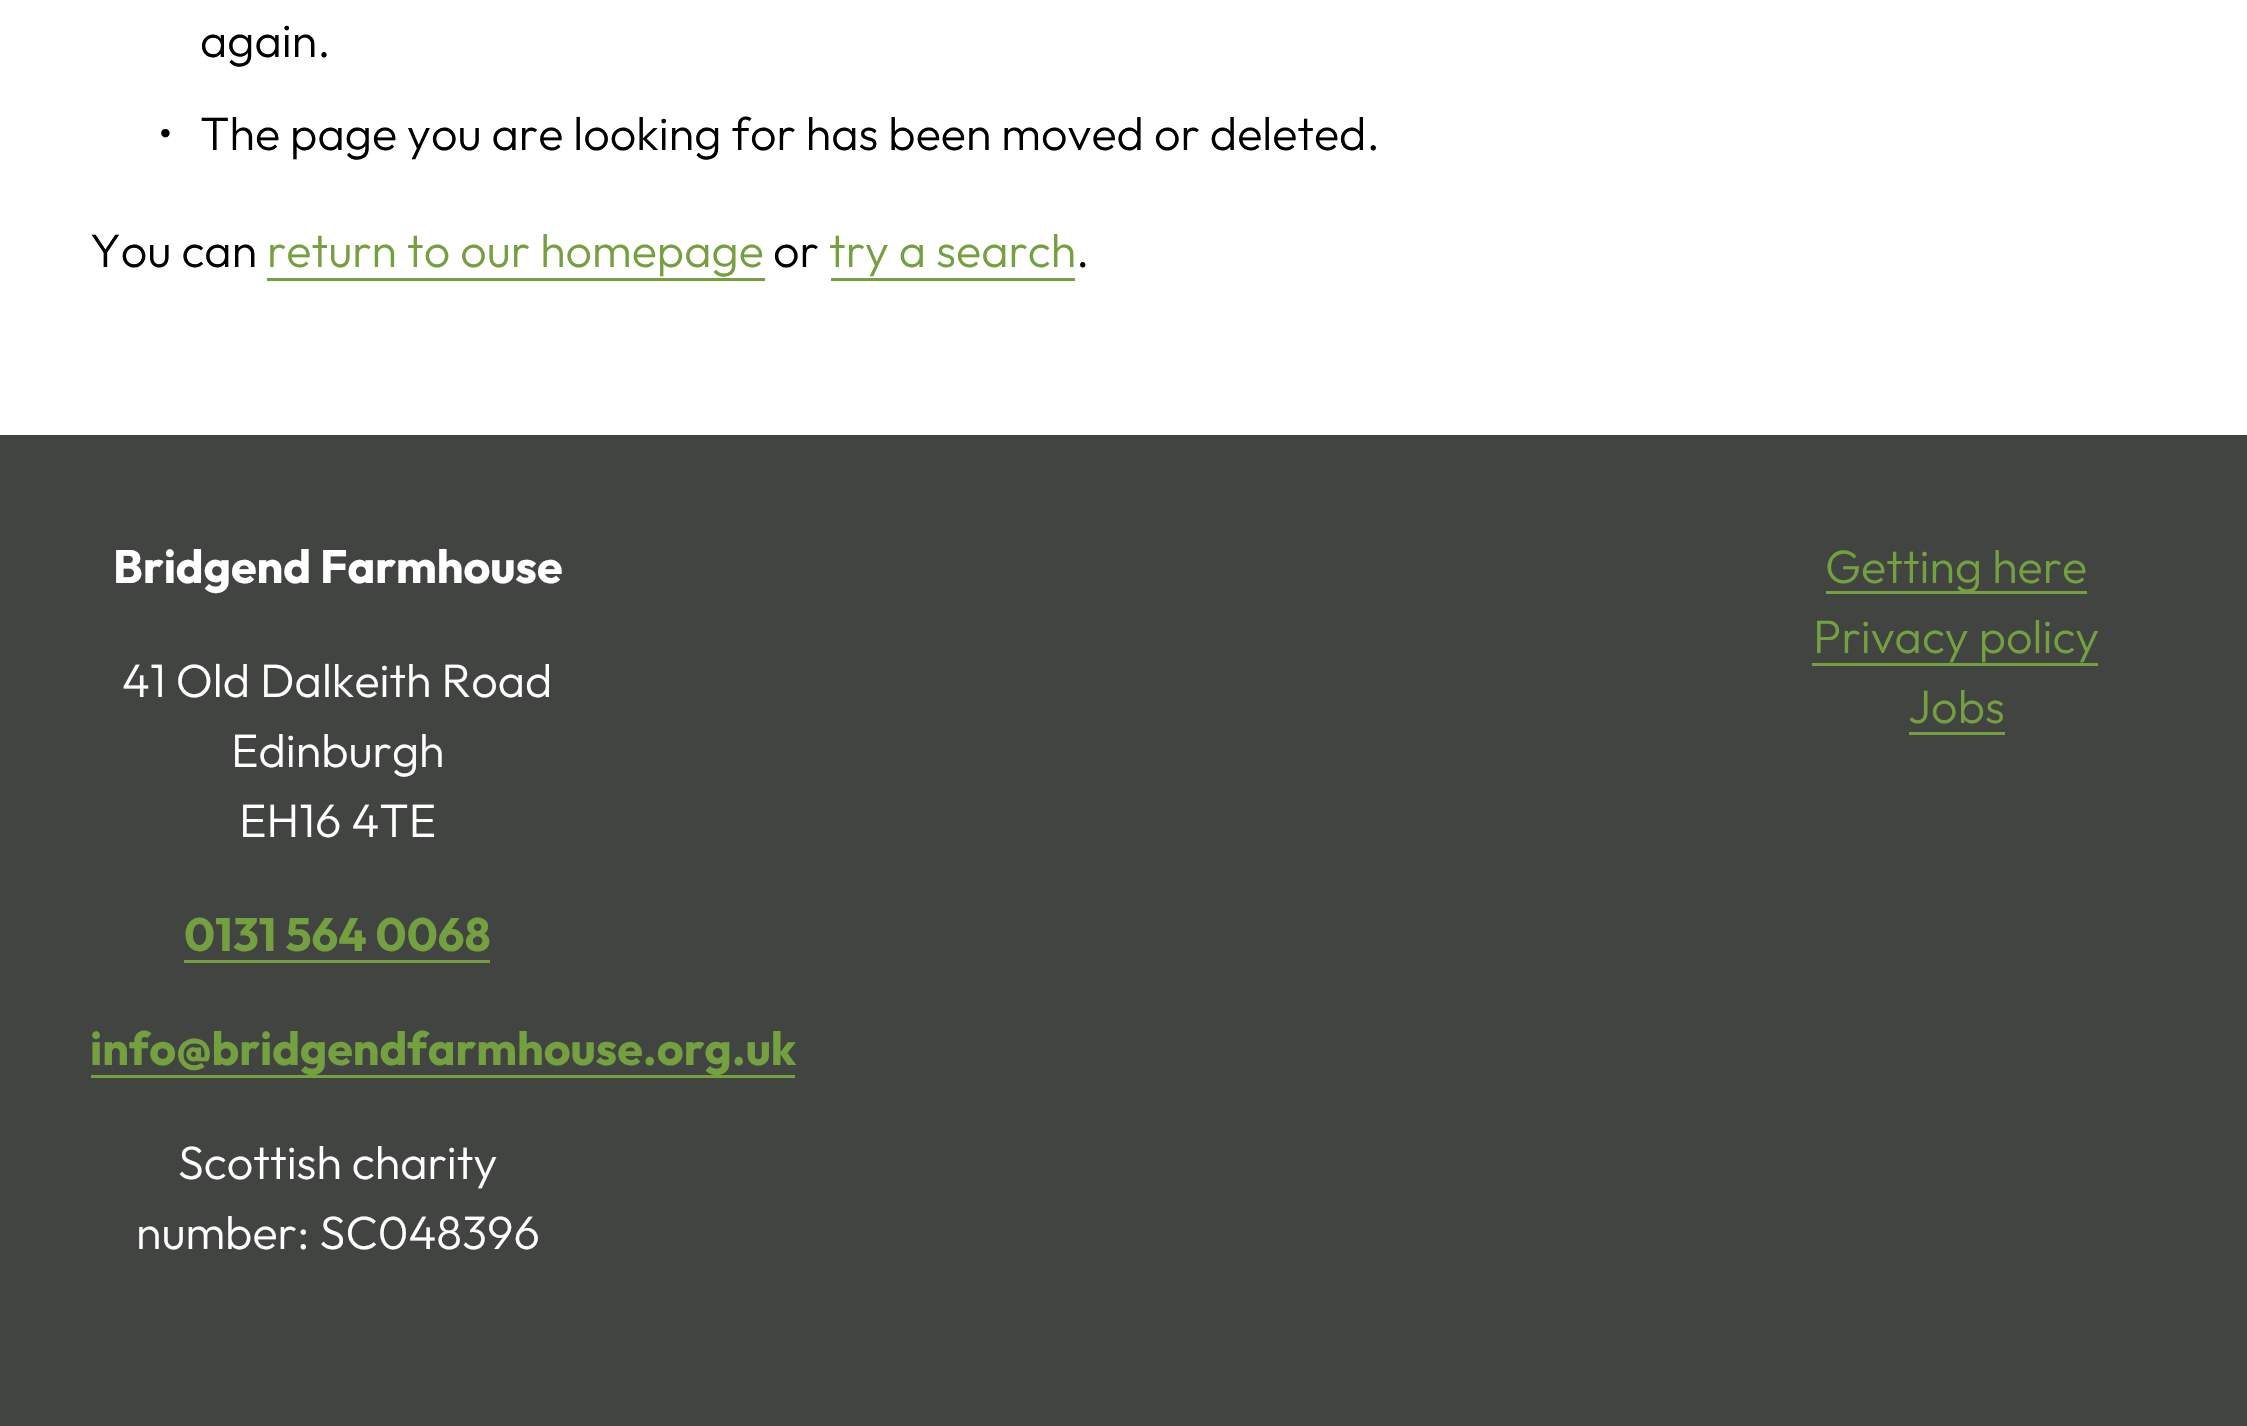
void draw(SkCanvas* canvas) {
    SkPaint paint;
    paint.setAntiAlias(true);
    canvas->clear(0xFFFFFFFF);
    SkFont font1(fontMgr->matchFamilyStyle("Outfit", SkFontStyle(300, SkFontStyle::kNormal_Width, SkFontStyle::kUpright_Slant)), 46.7f);
    font1.setSubpixel(true);
    paint.setColor(0xFF000000);
    canvas->drawString("again.", 200, 57, font1, paint);
    canvas->drawString("•", 158, 150, font1, paint);
    canvas->drawString("The page you are looking for has been moved or deleted.", 200, 150, font1, paint);
    canvas->drawString("You can", 90, 267, font1, paint);
    paint.setColor(0xFF74A040);
    canvas->drawString("return to our homepage", 267, 267, font1, paint);
    canvas->drawRect(SkRect::MakeXYWH(267, 278, 498, 3), paint);
    paint.setColor(0xFF000000);
    canvas->drawString("or", 773, 267, font1, paint);
    paint.setColor(0xFF74A040);
    canvas->drawString("try a search", 829, 267, font1, paint);
    canvas->drawRect(SkRect::MakeXYWH(831, 278, 244, 3), paint);
    paint.setColor(0xFF000000);
    canvas->drawString(".", 1076, 267, font1, paint);
    paint.setColor(0xFF424442);
    canvas->drawRect(SkRect::MakeXYWH(0, 435, 2247, 991), paint);
    SkFont font2(fontMgr->matchFamilyStyle("Outfit", SkFontStyle::Bold()), 46.7f);
    font2.setSubpixel(true);
    paint.setColor(0xFFFFFFFF);
    canvas->drawString("Bridgend Farmhouse", 113, 583, font2, paint);
    canvas->drawString("41 Old Dalkeith Road", 122, 697, font1, paint);
    canvas->drawString("Edinburgh", 231, 767, font1, paint);
    canvas->drawString("EH16 4TE", 239, 837, font1, paint);
    paint.setColor(0xFF74A040);
    canvas->drawString("0131 564 0068", 184, 951, font2, paint);
    canvas->drawRect(SkRect::MakeXYWH(184, 960, 306, 3), paint);
    canvas->drawRect(SkRect::MakeXYWH(91, 1075, 704, 3), paint);
    canvas->drawString("info@bridgendfarmhouse.org.uk", 90, 1065, font2, paint);
    paint.setColor(0xFFFFFFFF);
    canvas->drawString("Scottish charity", 178, 1179, font1, paint);
    canvas->drawString("number: SC048396", 136, 1249, font1, paint);
    paint.setColor(0xFF74A040);
    canvas->drawRect(SkRect::MakeXYWH(1826, 591, 261, 3), paint);
    canvas->drawString("Getting here", 1825, 583, font1, paint);
    canvas->drawString("Privacy policy", 1813, 653, font1, paint);
    canvas->drawRect(SkRect::MakeXYWH(1812, 663, 286, 3), paint);
    canvas->drawString("Jobs", 1908, 723, font1, paint);
    canvas->drawRect(SkRect::MakeXYWH(1909, 732, 96, 3), paint);
}
